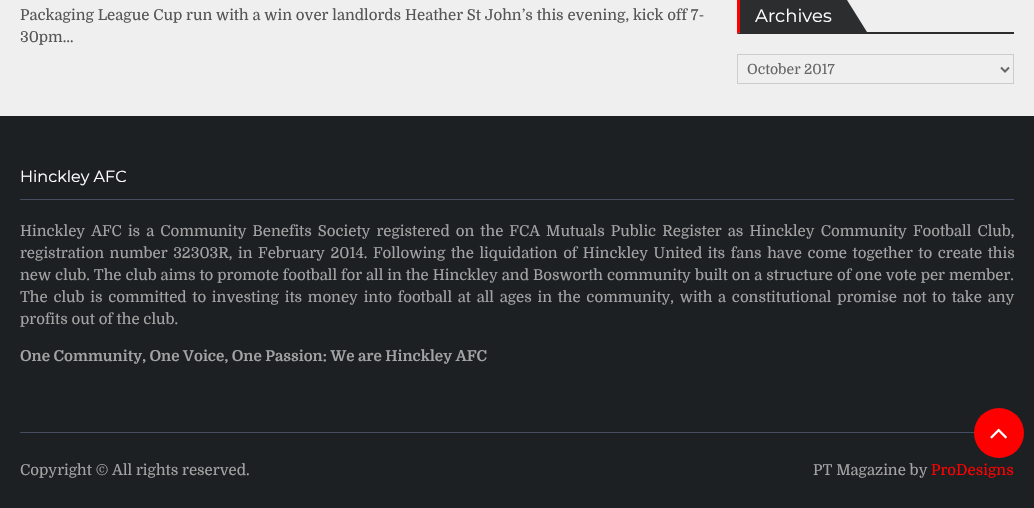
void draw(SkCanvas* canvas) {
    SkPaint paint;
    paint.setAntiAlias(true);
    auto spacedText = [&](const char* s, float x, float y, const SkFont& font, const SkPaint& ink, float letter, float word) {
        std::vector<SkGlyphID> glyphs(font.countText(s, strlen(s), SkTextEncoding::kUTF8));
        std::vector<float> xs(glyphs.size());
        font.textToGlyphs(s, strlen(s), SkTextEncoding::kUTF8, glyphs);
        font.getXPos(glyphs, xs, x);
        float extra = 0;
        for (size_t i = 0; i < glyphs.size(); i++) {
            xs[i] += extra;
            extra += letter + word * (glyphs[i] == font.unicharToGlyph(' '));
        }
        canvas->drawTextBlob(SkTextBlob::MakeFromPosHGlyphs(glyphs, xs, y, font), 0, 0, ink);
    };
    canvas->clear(0xFFEFEFEF);
    SkFont font1(fontMgr->matchFamilyStyle("Domine", SkFontStyle::Normal()), 15);
    font1.setSubpixel(true);
    paint.setColor(0xFF555555);
    canvas->drawString("Packaging League Cup run with a win over landlords Heather St John’s this evening, kick off 7-", 20, 20, font1, paint);
    canvas->drawString("30pm…", 20, 42, font1, paint);
    paint.setColor(0xFF2B2D2E);
    canvas->drawPath(SkPathBuilder().moveTo(1014, 34).lineTo(737, 34).lineTo(740, 32).lineTo(1014, 32).close().detach(), paint);
    paint.setColor(0xFFFF0000);
    canvas->drawPath(SkPathBuilder().moveTo(737, 34).lineTo(737, 0).lineTo(740, 0).lineTo(740, 32).close().detach(), paint);
    paint.setColor(0xFF2B2D2E);
    canvas->drawRect(SkRect::MakeXYWH(740, 0, 107, 32), paint);
    SkFont font2(fontMgr->matchFamilyStyle("Montserrat", SkFontStyle::Normal()), 18);
    font2.setSubpixel(true);
    paint.setColor(0xFFFFFFFF);
    canvas->drawString("Archives", 755, 22, font2, paint);
    paint.setColor(0xFF2B2D2E);
    canvas->drawPath(SkPathBuilder().moveTo(867, 32).lineTo(847, 32).lineTo(847, 0).close().detach(), paint);
    paint.setStyle(SkPaint::kStroke_Style);
    paint.setStrokeWidth(1);
    paint.setColor(0xFFCCCCCC);
    canvas->drawRect(SkRect::MakeXYWH(737.5f, 54.5f, 276, 29), paint);
    paint.setStrokeWidth(2);
    paint.setColor(0xFF666666);
    canvas->drawPath(SkPathBuilder().moveTo(1001, 67.5f).lineTo(1005, 71.5f).lineTo(1009, 67.5f).detach(), paint);
    SkFont font3(fontMgr->matchFamilyStyle("Domine", SkFontStyle::Normal()), 14);
    font3.setSubpixel(true);
    paint.setStyle(SkPaint::kFill_Style);
    canvas->drawString("October 2017", 747, 74, font3, paint);
    paint.setColor(0xFF1D2022);
    canvas->drawRect(SkRect::MakeXYWH(0, 116, 1034, 392), paint);
    paint.setColor(0xFF464D60);
    canvas->drawRect(SkRect::MakeXYWH(20, 199, 994, 1), paint);
    SkFont font4(fontMgr->matchFamilyStyle("Montserrat", SkFontStyle::Normal()), 16);
    font4.setSubpixel(true);
    paint.setColor(0xFFFFFFFF);
    canvas->drawString("Hinckley AFC", 20, 182, font4, paint);
    paint.setColor(0xFFA3A3A3);
    spacedText("Hinckley AFC is a Community Benefits Society registered on the FCA Mutuals Public Register as Hinckley Community Football Club,", 20, 236, font1, paint, 0, 2.25f);
    spacedText("registration number 32303R, in February 2014. Following the liquidation of Hinckley United its fans have come together to create this", 20, 258, font1, paint, 0, 1.75f);
    spacedText("new club. The club aims to promote football for all in the Hinckley and Bosworth community built on a structure of one vote per member.", 20, 280, font1, paint, 0, 0.15f);
    spacedText("The club is committed to investing its money into football at all ages in the community, with a constitutional promise not to take any", 20, 302, font1, paint, 0, 1.9f);
    canvas->drawString("profits out of the club.", 20, 324, font1, paint);
    SkFont font5(fontMgr->matchFamilyStyle("Domine", SkFontStyle::Bold()), 15);
    font5.setSubpixel(true);
    canvas->drawString("One Community, One Voice, One Passion: We are Hinckley AFC", 20, 361, font5, paint);
    paint.setColor(0xFF464D60);
    canvas->drawRect(SkRect::MakeXYWH(20, 432, 955, 1), paint);
    paint.setColor(0xFFA3A3A3);
    canvas->drawString("Copyright © All rights reserved.", 20, 475, font1, paint);
    canvas->drawString("PT Magazine by", 813, 475, font1, paint);
    paint.setColor(0xFFFF0000);
    canvas->drawString("ProDesigns", 931, 475, font1, paint);
    canvas->drawCircle(999, 433, 25, paint);
    canvas->drawImageRect(SkImages::DeferredFromEncodedData(SkData::MakeFromFileName("img1.png")), SkRect::MakeXYWH(990, 428, 17, 11), SkSamplingOptions());
}
